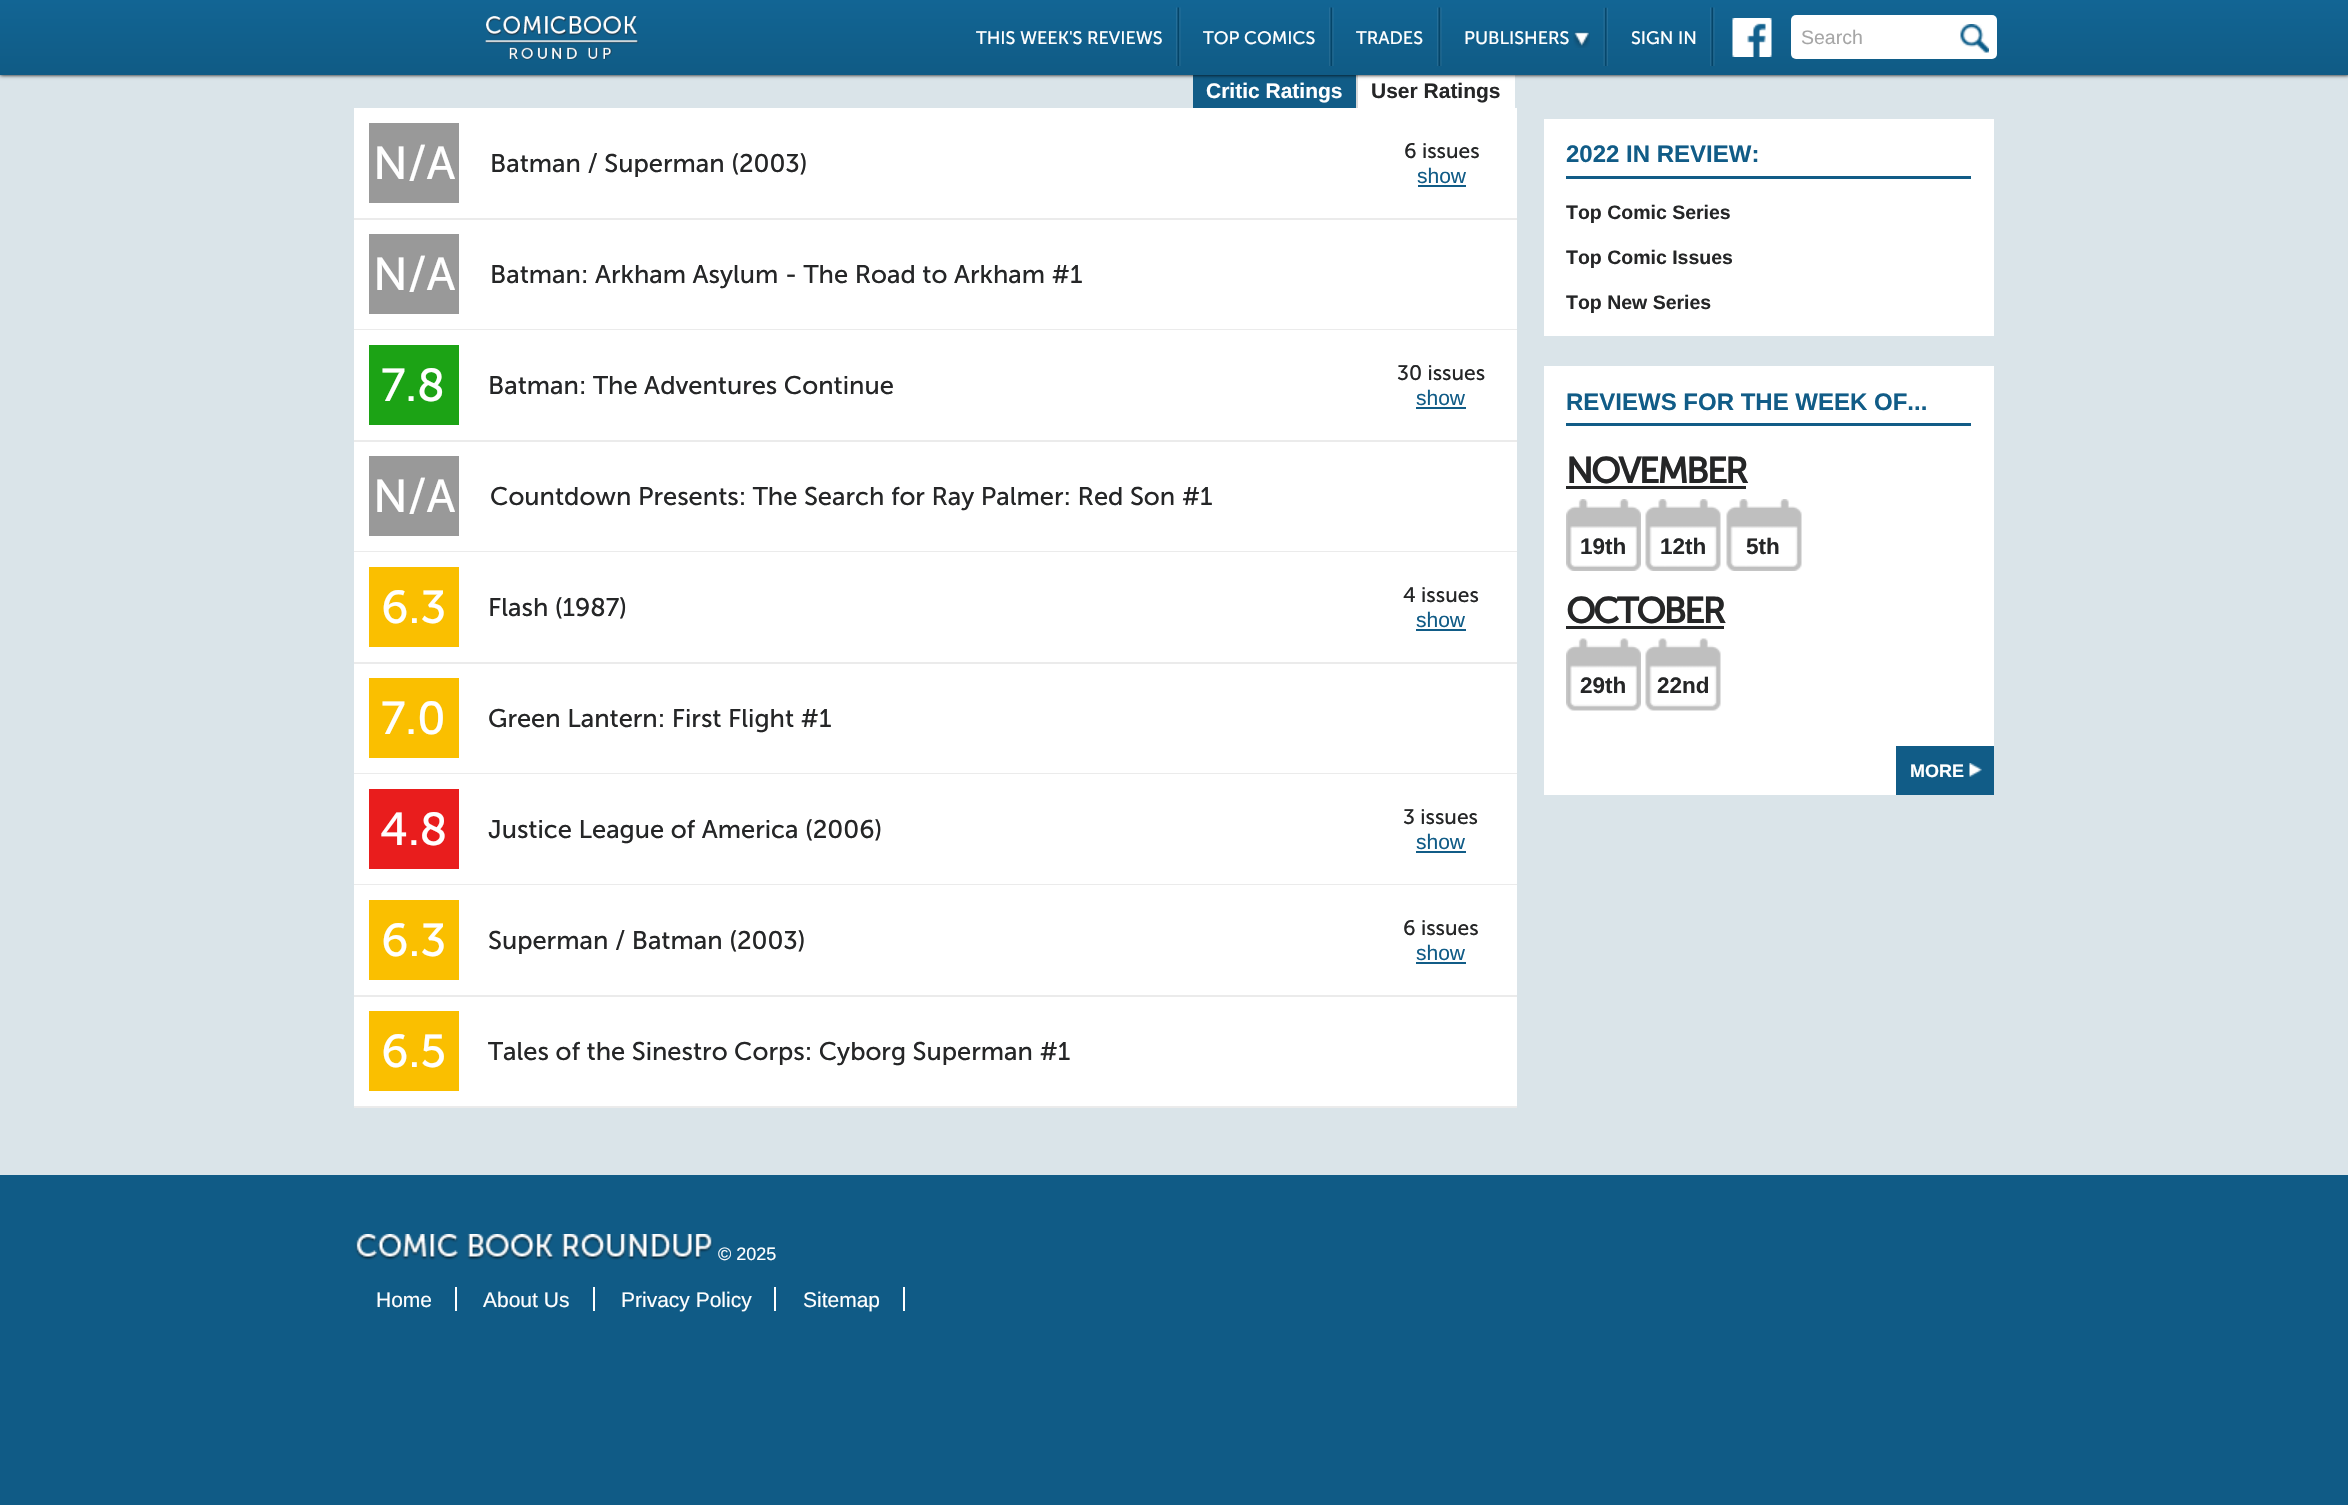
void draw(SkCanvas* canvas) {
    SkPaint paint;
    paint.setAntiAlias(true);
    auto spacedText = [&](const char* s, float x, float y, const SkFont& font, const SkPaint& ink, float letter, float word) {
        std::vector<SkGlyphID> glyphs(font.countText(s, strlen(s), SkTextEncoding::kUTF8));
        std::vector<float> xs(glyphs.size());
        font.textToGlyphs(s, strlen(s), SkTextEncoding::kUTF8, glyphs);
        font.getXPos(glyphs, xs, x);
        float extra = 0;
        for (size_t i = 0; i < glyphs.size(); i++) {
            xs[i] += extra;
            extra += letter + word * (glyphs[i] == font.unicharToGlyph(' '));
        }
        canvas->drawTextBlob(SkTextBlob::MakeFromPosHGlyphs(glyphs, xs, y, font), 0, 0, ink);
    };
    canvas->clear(0xFFDAE4E9);
    paint.setColor(0xFF115C87);
    canvas->drawRect(SkRect::MakeXYWH(1193, 75, 163, 33), paint);
    paint.setColor(0xFFD9D9D9);
    canvas->drawRect(SkRect::MakeXYWH(1356, 72, 2, 36), paint);
    paint.setColor(0xFFFFFFFF);
    canvas->drawRect(SkRect::MakeXYWH(1358, 75, 157, 33), paint);
    paint.setColor(0xFF000000);
    paint.setMaskFilter(SkMaskFilter::MakeBlur(kNormal_SkBlurStyle, 2));
    canvas->drawRect(SkRect::MakeXYWH(0, 0, 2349, 75), paint);
    paint.setMaskFilter(nullptr);
    {
        const SkColor colors[] = {0xFF126594, 0xFF105B85};
        const float stops[] = {0, 1};
        const SkPoint ends[] = {{0, 0}, {0, 75}};
        paint.setShader(SkGradientShader::MakeLinear(ends, colors, stops, 2, SkTileMode::kClamp));
        paint.setAlpha(255);
    }
    canvas->drawRect(SkRect::MakeXYWH(0, 0, 2348, 75), paint);
    canvas->drawImageRect(SkImages::DeferredFromEncodedData(SkData::MakeFromFileName("img1.png")), SkRect::MakeXYWH(485, 16, 154, 44), SkSamplingOptions());
    canvas->drawImageRect(SkImages::DeferredFromEncodedData(SkData::MakeFromFileName("img2.png")), SkRect::MakeXYWH(1176, 7, 5, 59), SkSamplingOptions());
    SkFont font1(fontMgr->matchFamilyStyle("Museo Sans", SkFontStyle::Normal()), 18);
    font1.setSubpixel(true);
    paint.setShader(nullptr);
    paint.setColor(0xFFFFFFFF);
    canvas->drawString("THIS WEEK'S REVIEWS", 976, 44, font1, paint);
    canvas->drawImageRect(SkImages::DeferredFromEncodedData(SkData::MakeFromFileName("img2.png")), SkRect::MakeXYWH(1329, 7, 5, 59), SkSamplingOptions());
    canvas->drawString("TOP COMICS", 1203, 44, font1, paint);
    canvas->drawImageRect(SkImages::DeferredFromEncodedData(SkData::MakeFromFileName("img2.png")), SkRect::MakeXYWH(1437, 7, 5, 59), SkSamplingOptions());
    canvas->drawString("TRADES", 1356, 44, font1, paint);
    canvas->drawImageRect(SkImages::DeferredFromEncodedData(SkData::MakeFromFileName("img3.png")), SkRect::MakeXYWH(1603, 7, 5, 59), SkSamplingOptions());
    canvas->drawString("PUBLISHERS", 1464, 44, font1, paint);
    canvas->drawImageRect(SkImages::DeferredFromEncodedData(SkData::MakeFromFileName("img4.png")), SkRect::MakeXYWH(1573, 31, 17, 17), SkSamplingOptions());
    canvas->drawImageRect(SkImages::DeferredFromEncodedData(SkData::MakeFromFileName("img2.png")), SkRect::MakeXYWH(1710, 7, 5, 59), SkSamplingOptions());
    canvas->drawString("SIGN IN", 1631, 44, font1, paint);
    canvas->drawImageRect(SkImages::DeferredFromEncodedData(SkData::MakeFromFileName("img5.png")), SkRect::MakeXYWH(1732, 18, 40, 39), SkSamplingOptions());
    canvas->drawRoundRect(SkRect::MakeXYWH(1791, 15, 206, 44), 5, 5, paint);
    canvas->drawImageRect(SkImages::DeferredFromEncodedData(SkData::MakeFromFileName("img6.png")), SkRect::MakeXYWH(1960, 24, 29, 29), SkSamplingOptions());
    SkFont font2(fontMgr->matchFamilyStyle("Liberation Sans", SkFontStyle::Normal()), 19.5f);
    font2.setSubpixel(true);
    paint.setColor(0xFFA6A6A6);
    canvas->drawString("Search", 1801, 44, font2, paint);
    SkFont font3(fontMgr->matchFamilyStyle("Liberation Sans", SkFontStyle::Bold()), 21);
    font3.setSubpixel(true);
    paint.setColor(0xFFFFFFFF);
    canvas->drawString("Critic Ratings", 1206, 98, font3, paint);
    paint.setColor(0xFF252627);
    canvas->drawString("User Ratings", 1371, 98, font3, paint);
    paint.setColor(0xFFFFFFFF);
    canvas->drawRect(SkRect::MakeXYWH(354, 108, 1163, 998), paint);
    paint.setColor(0xFFEBEBEB);
    canvas->drawRect(SkRect::MakeXYWH(354, 218, 1163, 2), paint);
    paint.setColor(0xFF999999);
    canvas->drawRect(SkRect::MakeXYWH(369, 123, 90, 80), paint);
    SkFont font4(fontMgr->matchFamilyStyle("Museo Sans", SkFontStyle::Normal()), 46);
    font4.setSubpixel(true);
    paint.setColor(0xFFFFFFFF);
    canvas->drawString("N/A", 373, 179, font4, paint);
    SkFont font5(fontMgr->matchFamilyStyle("Museo Sans", SkFontStyle::Normal()), 25.5f);
    font5.setSubpixel(true);
    paint.setColor(0xFF252627);
    canvas->drawString("Batman / Superman (2003)", 490, 172, font5, paint);
    SkFont font6(fontMgr->matchFamilyStyle("Museo Sans", SkFontStyle::Normal()), 21);
    font6.setSubpixel(true);
    canvas->drawString("6 issues", 1404, 158, font6, paint);
    SkFont font7(fontMgr->matchFamilyStyle("Liberation Sans", SkFontStyle::Normal()), 21);
    font7.setSubpixel(true);
    paint.setColor(0xFF115C87);
    canvas->drawString("show", 1417, 183, font7, paint);
    canvas->drawRect(SkRect::MakeXYWH(1418, 185, 48, 2), paint);
    paint.setColor(0xFFEBEBEB);
    canvas->drawRect(SkRect::MakeXYWH(354, 329, 1163, 1), paint);
    paint.setColor(0xFF999999);
    canvas->drawRect(SkRect::MakeXYWH(369, 234, 90, 80), paint);
    paint.setColor(0xFFFFFFFF);
    canvas->drawString("N/A", 373, 290, font4, paint);
    paint.setColor(0xFF252627);
    canvas->drawString("Batman: Arkham Asylum - The Road to Arkham #1", 490, 283, font5, paint);
    paint.setColor(0xFFEBEBEB);
    canvas->drawRect(SkRect::MakeXYWH(354, 440, 1163, 2), paint);
    paint.setColor(0xFF1CA315);
    canvas->drawRect(SkRect::MakeXYWH(369, 345, 90, 80), paint);
    paint.setColor(0xFFFFFFFF);
    canvas->drawString("7.8", 381, 401, font4, paint);
    paint.setColor(0xFF252627);
    canvas->drawString("Batman: The Adventures Continue", 488, 394, font5, paint);
    canvas->drawString("30 issues", 1397, 380, font6, paint);
    paint.setColor(0xFF115C87);
    canvas->drawString("show", 1416, 405, font7, paint);
    canvas->drawRect(SkRect::MakeXYWH(1416, 407, 50, 2), paint);
    paint.setColor(0xFFEBEBEB);
    canvas->drawRect(SkRect::MakeXYWH(354, 551, 1163, 1), paint);
    paint.setColor(0xFF999999);
    canvas->drawRect(SkRect::MakeXYWH(369, 456, 90, 80), paint);
    paint.setColor(0xFFFFFFFF);
    canvas->drawString("N/A", 373, 512, font4, paint);
    paint.setColor(0xFF252627);
    canvas->drawString("Countdown Presents: The Search for Ray Palmer: Red Son #1", 490, 505, font5, paint);
    paint.setColor(0xFFEBEBEB);
    canvas->drawRect(SkRect::MakeXYWH(354, 662, 1163, 2), paint);
    paint.setColor(0xFFFABF00);
    canvas->drawRect(SkRect::MakeXYWH(369, 567, 90, 80), paint);
    paint.setColor(0xFFFFFFFF);
    canvas->drawString("6.3", 381, 623, font4, paint);
    paint.setColor(0xFF252627);
    canvas->drawString("Flash (1987)", 488, 616, font5, paint);
    canvas->drawString("4 issues", 1403, 602, font6, paint);
    paint.setColor(0xFF115C87);
    canvas->drawString("show", 1416, 627, font7, paint);
    canvas->drawRect(SkRect::MakeXYWH(1416, 629, 50, 2), paint);
    paint.setColor(0xFFEBEBEB);
    canvas->drawRect(SkRect::MakeXYWH(354, 773, 1163, 1), paint);
    paint.setColor(0xFFFABF00);
    canvas->drawRect(SkRect::MakeXYWH(369, 678, 90, 80), paint);
    paint.setColor(0xFFFFFFFF);
    canvas->drawString("7.0", 381, 734, font4, paint);
    paint.setColor(0xFF252627);
    canvas->drawString("Green Lantern: First Flight #1", 488, 727, font5, paint);
    paint.setColor(0xFFEBEBEB);
    canvas->drawRect(SkRect::MakeXYWH(354, 884, 1163, 1), paint);
    paint.setColor(0xFFE91D1D);
    canvas->drawRect(SkRect::MakeXYWH(369, 789, 90, 80), paint);
    paint.setColor(0xFFFFFFFF);
    canvas->drawString("4.8", 380, 845, font4, paint);
    paint.setColor(0xFF252627);
    canvas->drawString("Justice League of America (2006)", 488, 838, font5, paint);
    canvas->drawString("3 issues", 1403, 824, font6, paint);
    paint.setColor(0xFF115C87);
    canvas->drawString("show", 1416, 849, font7, paint);
    canvas->drawRect(SkRect::MakeXYWH(1416, 851, 50, 2), paint);
    paint.setColor(0xFFEBEBEB);
    canvas->drawRect(SkRect::MakeXYWH(354, 995, 1163, 2), paint);
    paint.setColor(0xFFFABF00);
    canvas->drawRect(SkRect::MakeXYWH(369, 900, 90, 80), paint);
    paint.setColor(0xFFFFFFFF);
    canvas->drawString("6.3", 381, 956, font4, paint);
    paint.setColor(0xFF252627);
    canvas->drawString("Superman / Batman (2003)", 488, 949, font5, paint);
    canvas->drawString("6 issues", 1403, 935, font6, paint);
    paint.setColor(0xFF115C87);
    canvas->drawString("show", 1416, 960, font7, paint);
    canvas->drawRect(SkRect::MakeXYWH(1416, 962, 50, 2), paint);
    paint.setColor(0xFFEBEBEB);
    canvas->drawRect(SkRect::MakeXYWH(354, 1106, 1163, 2), paint);
    paint.setColor(0xFFFABF00);
    canvas->drawRect(SkRect::MakeXYWH(369, 1011, 90, 80), paint);
    paint.setColor(0xFFFFFFFF);
    canvas->drawString("6.5", 381, 1067, font4, paint);
    paint.setColor(0xFF252627);
    canvas->drawString("Tales of the Sinestro Corps: Cyborg Superman #1", 488, 1060, font5, paint);
    paint.setColor(0xFFFFFFFF);
    canvas->drawRect(SkRect::MakeXYWH(1544, 119, 450, 217), paint);
    paint.setColor(0xFF115C87);
    canvas->drawRect(SkRect::MakeXYWH(1566, 176, 405, 3), paint);
    SkFont font8(fontMgr->matchFamilyStyle("Liberation Sans", SkFontStyle::Bold()), 24);
    font8.setSubpixel(true);
    canvas->drawString("2022 IN REVIEW:", 1566, 162, font8, paint);
    SkFont font9(fontMgr->matchFamilyStyle("Liberation Sans", SkFontStyle::Bold()), 19.5f);
    font9.setSubpixel(true);
    paint.setColor(0xFF252627);
    canvas->drawString("Top Comic Series", 1566, 219, font9, paint);
    canvas->drawString("Top Comic Issues", 1566, 264, font9, paint);
    canvas->drawString("Top New Series", 1566, 309, font9, paint);
    paint.setColor(0xFFFFFFFF);
    canvas->drawRect(SkRect::MakeXYWH(1544, 366, 450, 429), paint);
    paint.setColor(0xFF115C87);
    canvas->drawRect(SkRect::MakeXYWH(1566, 423, 405, 3), paint);
    canvas->drawString("REVIEWS FOR THE WEEK OF...", 1566, 410, font8, paint);
    SkFont font10(fontMgr->matchFamilyStyle("Museo Sans", SkFontStyle::Bold()), 36);
    font10.setSubpixel(true);
    paint.setColor(0xFF252627);
    spacedText("NOVEMBER", 1566, 483, font10, paint, -2.25f, 0);
    canvas->drawRect(SkRect::MakeXYWH(1566, 486, 180, 3), paint);
    canvas->drawImageRect(SkImages::DeferredFromEncodedData(SkData::MakeFromFileName("img7.png")), SkRect::MakeXYWH(1566, 499, 75, 72), SkSamplingOptions());
    SkFont font11(fontMgr->matchFamilyStyle("Liberation Sans", SkFontStyle::Bold()), 22.5f);
    font11.setSubpixel(true);
    canvas->drawString("19th", 1580, 554, font11, paint);
    canvas->drawImageRect(SkImages::DeferredFromEncodedData(SkData::MakeFromFileName("img8.png")), SkRect::MakeXYWH(1645, 499, 76, 72), SkSamplingOptions());
    canvas->drawString("12th", 1660, 554, font11, paint);
    canvas->drawImageRect(SkImages::DeferredFromEncodedData(SkData::MakeFromFileName("img8.png")), SkRect::MakeXYWH(1726, 499, 76, 72), SkSamplingOptions());
    canvas->drawString("5th", 1746, 554, font11, paint);
    spacedText("OCTOBER", 1566, 623, font10, paint, -2.25f, 0);
    canvas->drawRect(SkRect::MakeXYWH(1566, 626, 158, 3), paint);
    canvas->drawImageRect(SkImages::DeferredFromEncodedData(SkData::MakeFromFileName("img9.png")), SkRect::MakeXYWH(1566, 638, 75, 73), SkSamplingOptions());
    canvas->drawString("29th", 1580, 693, font11, paint);
    canvas->drawImageRect(SkImages::DeferredFromEncodedData(SkData::MakeFromFileName("img10.png")), SkRect::MakeXYWH(1645, 638, 76, 73), SkSamplingOptions());
    canvas->drawString("22nd", 1657, 693, font11, paint);
    paint.setColor(0xFF115C87);
    canvas->drawRect(SkRect::MakeXYWH(1896, 746, 98, 49), paint);
    SkFont font12(fontMgr->matchFamilyStyle("Liberation Sans", SkFontStyle::Bold()), 18);
    font12.setSubpixel(true);
    paint.setColor(0xFFFFFFFF);
    canvas->drawString("MORE", 1910, 777, font12, paint);
    canvas->drawImageRect(SkImages::DeferredFromEncodedData(SkData::MakeFromFileName("img11.png")), SkRect::MakeXYWH(1969, 763, 13, 14), SkSamplingOptions());
    paint.setColor(0xFF105B86);
    canvas->drawRect(SkRect::MakeXYWH(0, 1175, 2348, 330), paint);
    canvas->drawImageRect(SkImages::DeferredFromEncodedData(SkData::MakeFromFileName("img12.png")), SkRect::MakeXYWH(355, 1234, 358, 26), SkSamplingOptions());
    SkFont font13(fontMgr->matchFamilyStyle("Liberation Sans", SkFontStyle::Normal()), 18);
    font13.setSubpixel(true);
    paint.setColor(0xFFFFFFFF);
    canvas->drawString("© 2025", 718, 1260, font13, paint);
    canvas->drawRect(SkRect::MakeXYWH(455, 1287, 2, 24), paint);
    canvas->drawString("Home", 376, 1307, font7, paint);
    canvas->drawRect(SkRect::MakeXYWH(593, 1287, 2, 24), paint);
    canvas->drawString("About Us", 483, 1307, font7, paint);
    canvas->drawRect(SkRect::MakeXYWH(774, 1287, 2, 24), paint);
    canvas->drawString("Privacy Policy", 621, 1307, font7, paint);
    canvas->drawRect(SkRect::MakeXYWH(903, 1287, 2, 24), paint);
    canvas->drawString("Sitemap", 803, 1307, font7, paint);
}
